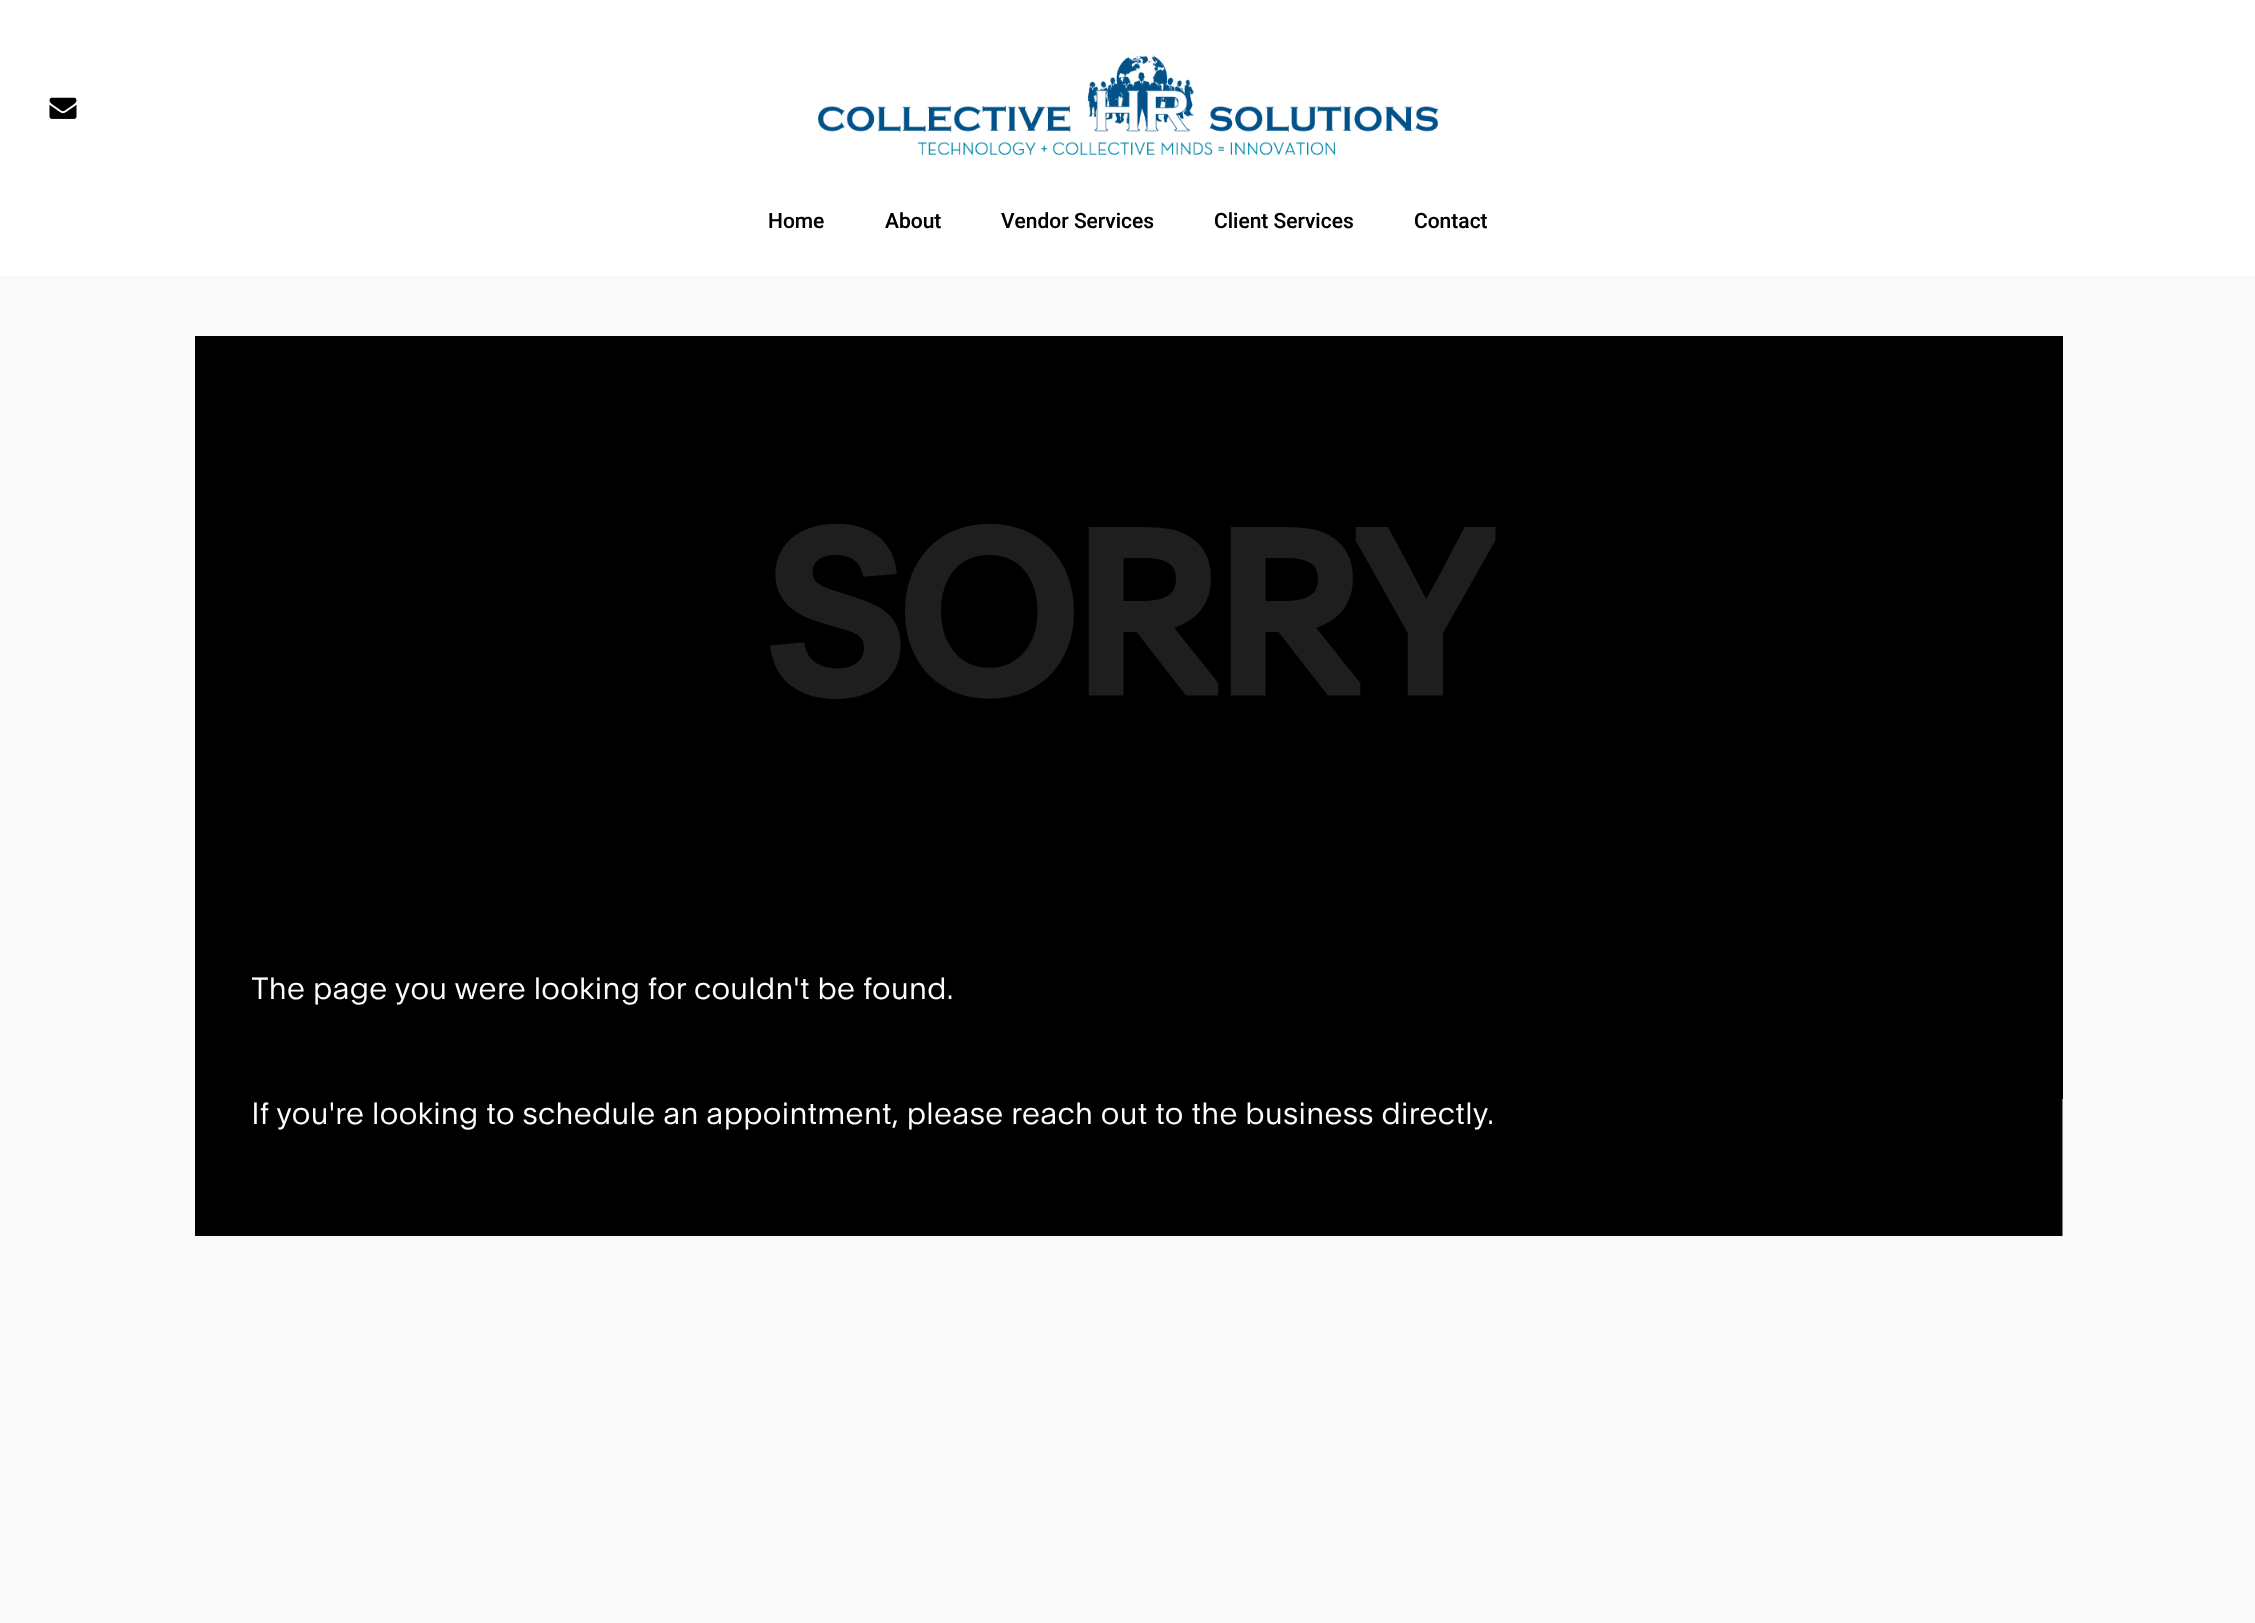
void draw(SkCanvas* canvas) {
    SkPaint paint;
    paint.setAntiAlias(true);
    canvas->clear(0xFFF9F9F9);
    paint.setColor(0xFFFFFFFF);
    canvas->drawRect(SkRect::MakeXYWH(0, 0, 2255, 276), paint);
    canvas->drawImageRect(SkImages::DeferredFromEncodedData(SkData::MakeFromFileName("img1.png")), SkRect::MakeXYWH(49, 97, 28, 22), SkSamplingOptions());
    canvas->drawImageRect(SkImages::DeferredFromEncodedData(SkData::MakeFromFileName("img2.png")), SkRect::MakeXYWH(818, 53, 621, 102), SkSamplingOptions());
    SkFont font1(fontMgr->matchFamilyStyle("Roboto", SkFontStyle(500, SkFontStyle::kNormal_Width, SkFontStyle::kUpright_Slant)), 21);
    font1.setSubpixel(true);
    paint.setColor(0xFF000000);
    canvas->drawString("Home", 768, 228, font1, paint);
    canvas->drawString("About", 885, 228, font1, paint);
    canvas->drawString("Vendor Services", 1001, 228, font1, paint);
    canvas->drawString("Client Services", 1214, 228, font1, paint);
    canvas->drawString("Contact", 1414, 228, font1, paint);
    canvas->drawImageRect(SkImages::DeferredFromEncodedData(SkData::MakeFromFileName("img3.png")), SkRect::MakeXYWH(195, 336, 1868, 900), SkSamplingOptions());
}
